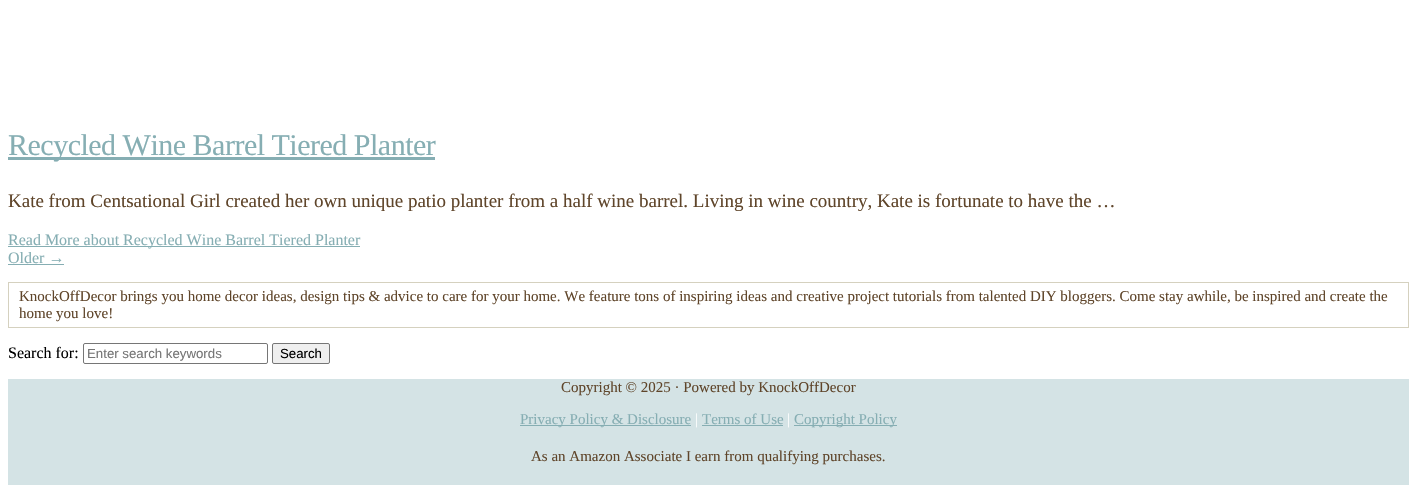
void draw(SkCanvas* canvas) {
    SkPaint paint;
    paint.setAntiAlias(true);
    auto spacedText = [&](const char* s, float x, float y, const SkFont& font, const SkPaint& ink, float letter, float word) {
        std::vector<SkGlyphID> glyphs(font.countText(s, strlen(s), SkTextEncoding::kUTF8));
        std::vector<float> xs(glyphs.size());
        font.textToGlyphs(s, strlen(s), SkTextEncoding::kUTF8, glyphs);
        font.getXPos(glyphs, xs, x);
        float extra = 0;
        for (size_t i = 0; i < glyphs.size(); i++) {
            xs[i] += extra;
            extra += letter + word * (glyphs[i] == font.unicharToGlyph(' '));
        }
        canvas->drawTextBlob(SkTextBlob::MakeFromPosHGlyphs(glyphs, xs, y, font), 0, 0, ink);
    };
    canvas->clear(0xFFFFFFFF);
    paint.setColor(0xFF86AEB3);
    canvas->drawRect(SkRect::MakeXYWH(8, 157, 427, 3), paint);
    SkFont font1(fontMgr->matchFamilyStyle("Liberation Serif", SkFontStyle::Normal()), 30);
    font1.setSubpixel(true);
    spacedText("Recycled Wine Barrel Tiered Planter", 8, 155, font1, paint, -0.5f, 0);
    SkFont font2(fontMgr->matchFamilyStyle("Liberation Serif", SkFontStyle::Normal()), 19);
    font2.setSubpixel(true);
    paint.setColor(0xFF5F452A);
    canvas->drawString("Kate from Centsational Girl created her own unique patio planter from a half wine barrel. Living in wine country, Kate is fortunate to have the …", 8, 207, font2, paint);
    paint.setColor(0xFF86AEB3);
    canvas->drawRect(SkRect::MakeXYWH(8, 246, 352, 1), paint);
    SkFont font3(fontMgr->matchFamilyStyle("Liberation Serif", SkFontStyle::Normal()), 16);
    font3.setSubpixel(true);
    canvas->drawString("Read More about Recycled Wine Barrel Tiered Planter", 8, 245, font3, paint);
    canvas->drawString("Older →", 8, 263, font3, paint);
    canvas->drawRect(SkRect::MakeXYWH(8, 264, 56, 1), paint);
    paint.setStyle(SkPaint::kStroke_Style);
    paint.setStrokeWidth(1);
    paint.setColor(0xFFD5D1BF);
    canvas->drawRect(SkRect::MakeXYWH(8.5f, 282.5f, 1400, 45), paint);
    SkFont font4(fontMgr->matchFamilyStyle("Liberation Serif", SkFontStyle::Normal()), 15);
    font4.setSubpixel(true);
    paint.setStyle(SkPaint::kFill_Style);
    paint.setColor(0xFF5F452A);
    canvas->drawString("KnockOffDecor brings you home decor ideas, design tips & advice to care for your home. We feature tons of inspiring ideas and creative project tutorials from talented DIY bloggers. Come stay awhile, be inspired and create the", 19, 301, font4, paint);
    canvas->drawString("home you love!", 19, 318, font4, paint);
    paint.setColor(0xFF000000);
    canvas->drawString("Search for:", 8, 358, font3, paint);
    paint.setStyle(SkPaint::kStroke_Style);
    paint.setColor(0xFF767676);
    canvas->drawRoundRect(SkRect::MakeXYWH(83.5f, 343.5f, 184, 20), 1.5f, 1.5f, paint);
    SkFont font5(fontMgr->matchFamilyStyle("Liberation Sans", SkFontStyle::Normal()), 13.25f);
    font5.setSubpixel(true);
    paint.setStyle(SkPaint::kFill_Style);
    paint.setColor(0xFF757575);
    canvas->drawString("Enter search keywords", 87, 358, font5, paint);
    paint.setColor(0xFFEFEFEF);
    canvas->drawRoundRect(SkRect::MakeXYWH(272.5f, 343.5f, 57, 20), 1.5f, 1.5f, paint);
    paint.setStyle(SkPaint::kStroke_Style);
    paint.setColor(0xFF767676);
    canvas->drawRoundRect(SkRect::MakeXYWH(272.5f, 343.5f, 57, 20), 1.5f, 1.5f, paint);
    paint.setStyle(SkPaint::kFill_Style);
    paint.setColor(0xFF000000);
    canvas->drawString("Search", 280, 358, font5, paint);
    paint.setColor(0xFFD4E3E5);
    canvas->drawRect(SkRect::MakeXYWH(8, 379, 1401, 106), paint);
    paint.setColor(0xFF5F452A);
    canvas->drawString("Copyright © 2025 · Powered by KnockOffDecor", 561, 392, font4, paint);
    paint.setColor(0xFF86AEB3);
    canvas->drawRect(SkRect::MakeXYWH(520, 425, 171, 1), paint);
    canvas->drawString("Privacy Policy & Disclosure", 520, 424, font4, paint);
    paint.setColor(0xFFFFFFFF);
    canvas->drawString("|", 695, 424, font4, paint);
    paint.setColor(0xFF86AEB3);
    canvas->drawString("Terms of Use", 702, 424, font4, paint);
    canvas->drawRect(SkRect::MakeXYWH(702, 425, 81, 1), paint);
    paint.setColor(0xFFFFFFFF);
    canvas->drawString("|", 787, 424, font4, paint);
    paint.setColor(0xFF86AEB3);
    canvas->drawRect(SkRect::MakeXYWH(794, 425, 103, 1), paint);
    canvas->drawString("Copyright Policy", 794, 424, font4, paint);
    paint.setColor(0xFF5F452A);
    canvas->drawString("As an Amazon Associate I earn from qualifying purchases.", 531, 461, font4, paint);
}
